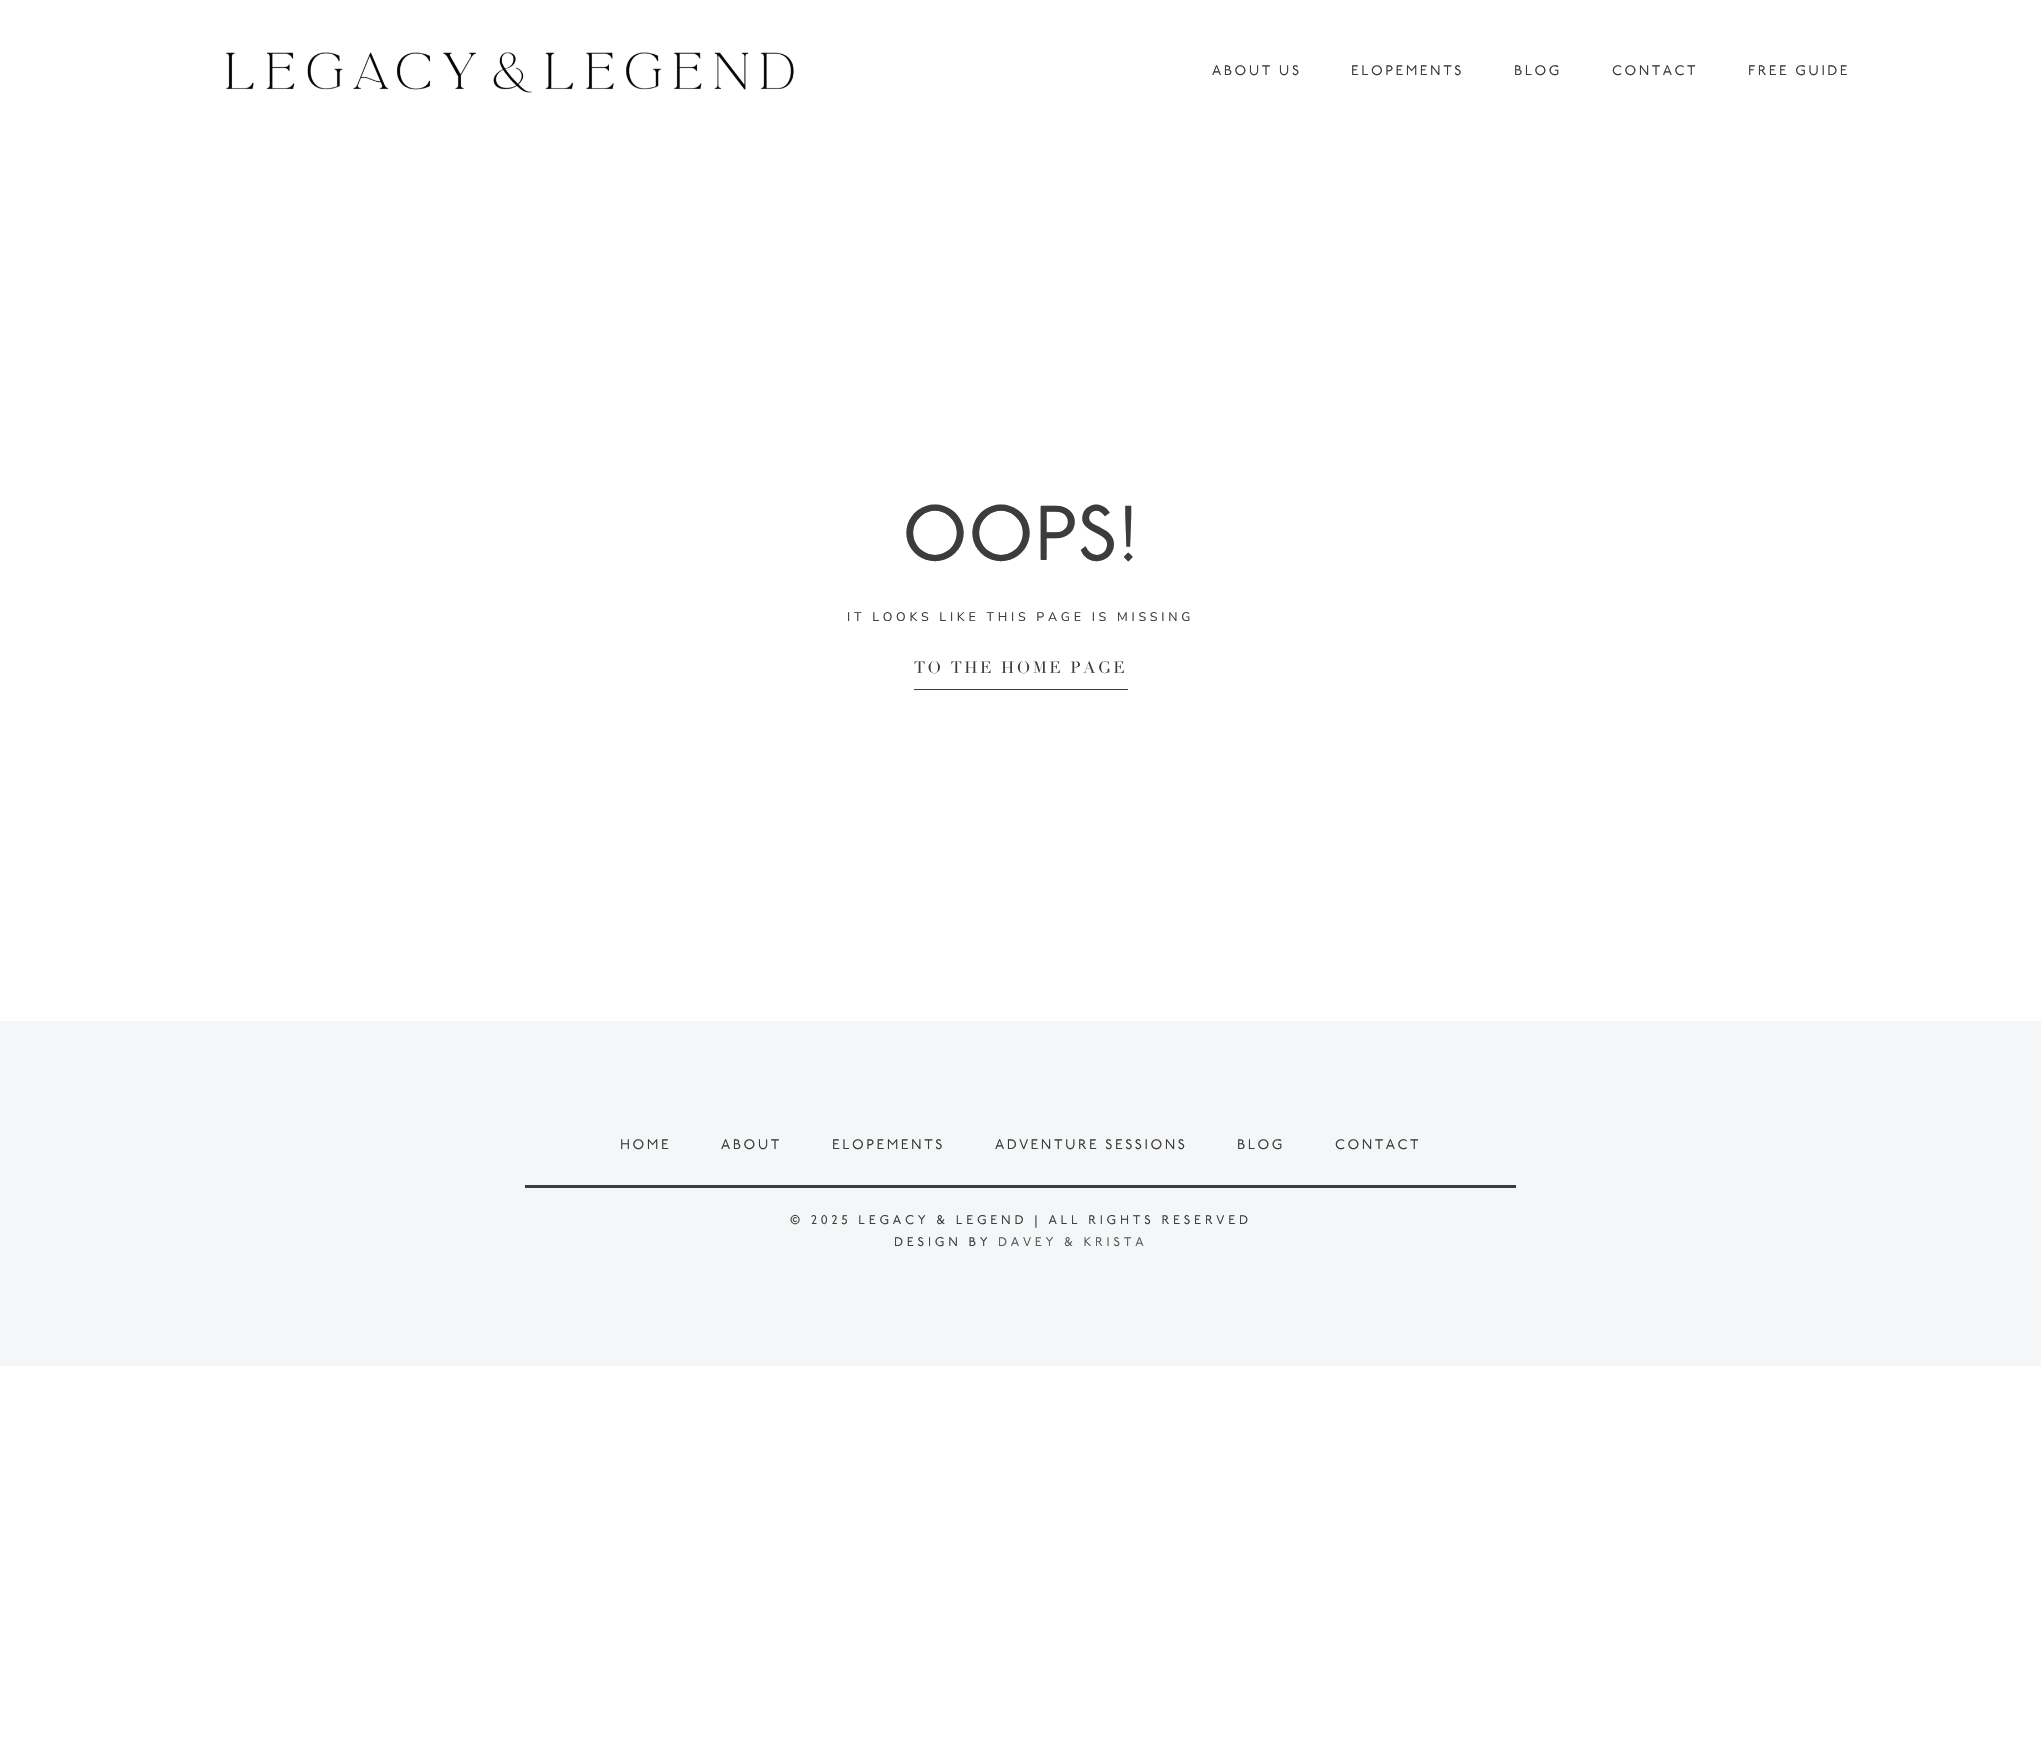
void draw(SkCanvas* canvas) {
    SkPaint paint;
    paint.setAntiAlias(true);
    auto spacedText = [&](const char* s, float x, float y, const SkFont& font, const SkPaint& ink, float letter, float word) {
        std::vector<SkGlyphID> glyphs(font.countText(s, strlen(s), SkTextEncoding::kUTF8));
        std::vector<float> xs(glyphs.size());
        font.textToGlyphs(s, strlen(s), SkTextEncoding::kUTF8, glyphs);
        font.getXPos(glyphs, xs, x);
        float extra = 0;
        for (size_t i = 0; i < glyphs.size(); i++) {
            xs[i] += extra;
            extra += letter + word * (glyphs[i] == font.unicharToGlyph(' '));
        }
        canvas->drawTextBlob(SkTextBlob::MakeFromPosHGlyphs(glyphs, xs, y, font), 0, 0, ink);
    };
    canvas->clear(0xFFFFFFFF);
    canvas->drawImageRect(SkImages::DeferredFromEncodedData(SkData::MakeFromFileName("img1.png")), SkRect::MakeXYWH(226, 52, 568, 41), SkSamplingOptions());
    SkFont font1(fontMgr->matchFamilyStyle("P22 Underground", SkFontStyle::Normal()), 13.75f);
    font1.setSubpixel(true);
    paint.setColor(0xFF3C3C3C);
    spacedText("ABOUT US", 1212, 75, font1, paint, 2.5f, 0);
    spacedText("ELOPEMENTS", 1351, 75, font1, paint, 2.5f, 0);
    spacedText("BLOG", 1514, 75, font1, paint, 2.5f, 0);
    spacedText("CONTACT", 1612, 75, font1, paint, 2.5f, 0);
    spacedText("FREE GUIDE", 1748, 75, font1, paint, 2.5f, 0);
    SkFont font2(fontMgr->matchFamilyStyle("P22 Underground", SkFontStyle::Normal()), 77.5f);
    font2.setSubpixel(true);
    canvas->drawString("OOPS!", 902, 560, font2, paint);
    SkFont font3(fontMgr->matchFamilyStyle("Nunito Sans", SkFontStyle::Normal()), 12.5f);
    font3.setSubpixel(true);
    spacedText("IT LOOKS LIKE THIS PAGE IS MISSING", 847, 621, font3, paint, 3.75f, 0);
    canvas->drawRect(SkRect::MakeXYWH(914, 689, 214, 1), paint);
    SkFont font4(fontMgr->matchFamilyStyle("Didot", SkFontStyle::Normal()), 16.25f);
    font4.setSubpixel(true);
    spacedText("TO THE HOME PAGE", 914, 673, font4, paint, 2.5f, 0);
    paint.setColor(0xFFF5F6F7);
    canvas->drawRect(SkRect::MakeXYWH(0, 1021, 2041, 345), paint);
    paint.setColor(0xFF3C3C3C);
    spacedText("HOME", 620, 1149, font1, paint, 2.5f, 0);
    spacedText("ABOUT", 721, 1149, font1, paint, 2.5f, 0);
    spacedText("ELOPEMENTS", 832, 1149, font1, paint, 2.5f, 0);
    spacedText("ADVENTURE SESSIONS", 995, 1149, font1, paint, 2.5f, 0);
    spacedText("BLOG", 1237, 1149, font1, paint, 2.5f, 0);
    spacedText("CONTACT", 1335, 1149, font1, paint, 2.5f, 0);
    canvas->drawRect(SkRect::MakeXYWH(525, 1185, 991, 3), paint);
    SkFont font5(fontMgr->matchFamilyStyle("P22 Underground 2", SkFontStyle::Normal()), 12.5f);
    font5.setSubpixel(true);
    spacedText("© 2025 LEGACY & LEGEND | ALL RIGHTS RESERVED", 790, 1224, font5, paint, 3.75f, 0);
    spacedText("DESIGN BY", 894, 1246, font5, paint, 3.75f, 0);
    paint.setColor(0xFF585858);
    spacedText("DAVEY & KRISTA", 998, 1246, font5, paint, 3.75f, 0);
}
